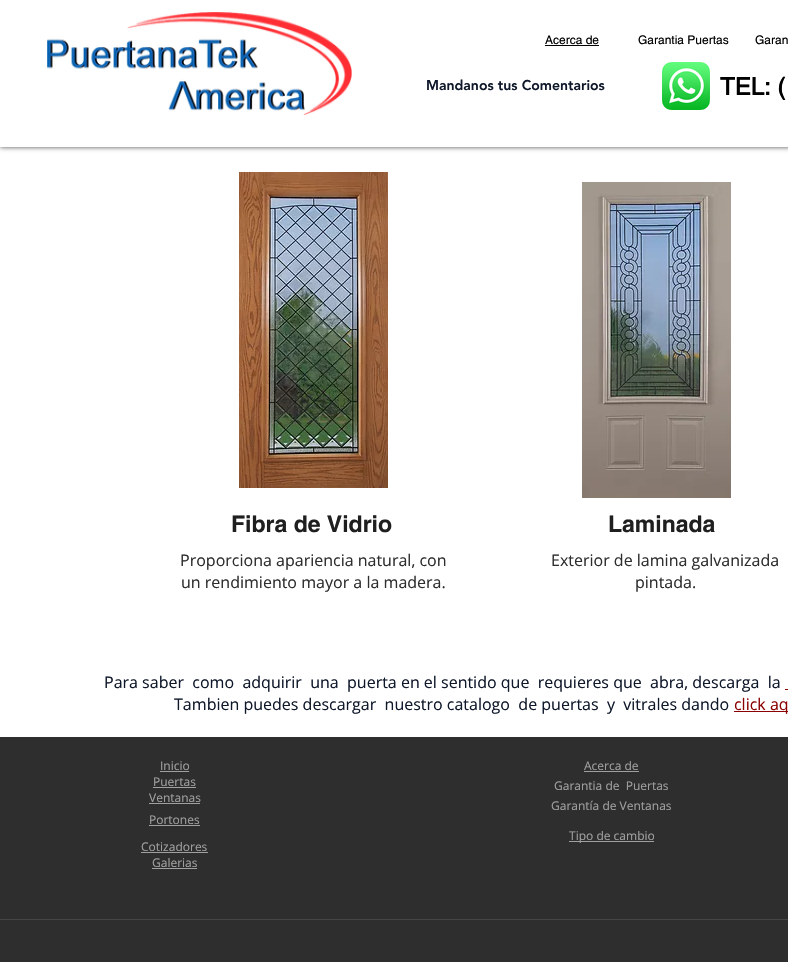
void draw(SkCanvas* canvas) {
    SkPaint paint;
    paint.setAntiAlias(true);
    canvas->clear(0xFFFFFFFF);
    paint.setColor(0xB3000000);
    paint.setMaskFilter(SkMaskFilter::MakeBlur(kNormal_SkBlurStyle, 2.5f));
    canvas->drawRect(SkRect::MakeXYWH(0, 0, 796, 147), paint);
    paint.setMaskFilter(nullptr);
    paint.setColor(0xFFFFFFFF);
    canvas->drawRect(SkRect::MakeXYWH(0, 0, 788, 147), paint);
    canvas->drawImageRect(SkImages::DeferredFromEncodedData(SkData::MakeFromFileName("img1.png")), SkRect::MakeXYWH(47, 12, 305, 103), SkSamplingOptions());
    SkFont font1(fontMgr->matchFamilyStyle("helvetica", SkFontStyle::Normal()), 12);
    font1.setSubpixel(true);
    paint.setColor(0xFF000000);
    canvas->drawString("Acerca de", 545, 44, font1, paint);
    canvas->drawRect(SkRect::MakeXYWH(545, 45, 54, 1), paint);
    canvas->drawString("Garantia Puertas", 638, 44, font1, paint);
    canvas->drawString("Garan", 755, 44, font1, paint);
    SkFont font2(fontMgr->matchFamilyStyle("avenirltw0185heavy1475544", SkFontStyle(900, SkFontStyle::kNormal_Width, SkFontStyle::kUpright_Slant)), 14);
    font2.setSubpixel(true);
    paint.setColor(0xFF0F182A);
    canvas->drawString("Mandanos tus Comentarios", 426, 90, font2, paint);
    canvas->drawImageRect(SkImages::DeferredFromEncodedData(SkData::MakeFromFileName("img2.png")), SkRect::MakeXYWH(662, 62, 48, 48), SkSamplingOptions());
    SkFont font3(fontMgr->matchFamilyStyle("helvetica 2", SkFontStyle::Bold()), 24);
    font3.setSubpixel(true);
    paint.setColor(0xFF000000);
    canvas->drawString("TEL: (", 720, 95, font3, paint);
    canvas->drawImageRect(SkImages::DeferredFromEncodedData(SkData::MakeFromFileName("img3.png")), SkRect::MakeXYWH(239, 172, 149, 316), SkSamplingOptions());
    canvas->drawImageRect(SkImages::DeferredFromEncodedData(SkData::MakeFromFileName("img4.png")), SkRect::MakeXYWH(582, 182, 149, 316), SkSamplingOptions());
    SkFont font4(fontMgr->matchFamilyStyle("helvetica", SkFontStyle::Bold()), 23);
    font4.setSubpixel(true);
    paint.setColor(0xFF1F1F1F);
    canvas->drawString("Fibra de Vidrio", 231, 532, font4, paint);
    canvas->drawString("Laminada", 608, 532, font4, paint);
    SkFont font5(fontMgr->matchFamilyStyle("Open Sans", SkFontStyle::Normal()), 16);
    font5.setSubpixel(true);
    paint.setColor(0xFF2F2E2E);
    canvas->drawString("Proporciona apariencia natural, con", 180, 566, font5, paint);
    canvas->drawString("un rendimiento mayor a la madera.", 181, 588, font5, paint);
    canvas->drawString("Exterior de lamina galvanizada", 551, 566, font5, paint);
    canvas->drawString("pintada.", 635, 588, font5, paint);
    paint.setColor(0xFF0F182A);
    canvas->drawString("Para saber  como  adquirir  una  puerta en el sentido que  requieres que  abra, descarga  la", 104, 688, font5, paint);
    paint.setColor(0xFF8B0000);
    canvas->drawRect(SkRect::MakeXYWH(785, 689, 3, 1), paint);
    paint.setColor(0xFF0F182A);
    canvas->drawString("Tambien puedes descargar  nuestro catalogo  de puertas  y  vitrales dando", 174, 710, font5, paint);
    paint.setColor(0xFF8B0000);
    canvas->drawRect(SkRect::MakeXYWH(734, 711, 54, 1), paint);
    canvas->drawString("click aq", 734, 710, font5, paint);
    paint.setColor(0xFF2F2E2E);
    canvas->drawRect(SkRect::MakeXYWH(0, 737, 788, 225), paint);
    SkFont font6(fontMgr->matchFamilyStyle("Open Sans", SkFontStyle::Normal()), 12);
    font6.setSubpixel(true);
    paint.setColor(0xFFA0A09F);
    canvas->drawString("Inicio", 160, 770, font6, paint);
    canvas->drawRect(SkRect::MakeXYWH(160, 771, 29, 1), paint);
    canvas->drawString("Acerca de", 584, 770, font6, paint);
    canvas->drawRect(SkRect::MakeXYWH(584, 771, 55, 1), paint);
    canvas->drawString("Puertas", 153, 786, font6, paint);
    canvas->drawRect(SkRect::MakeXYWH(153, 787, 43, 1), paint);
    canvas->drawString("Garantia de  Puertas", 554, 790, font6, paint);
    canvas->drawString("Ventanas", 149, 802, font6, paint);
    canvas->drawRect(SkRect::MakeXYWH(149, 803, 51, 1), paint);
    canvas->drawString("Garantía de Ventanas", 551, 810, font6, paint);
    canvas->drawString("Portones", 149, 824, font6, paint);
    canvas->drawRect(SkRect::MakeXYWH(149, 825, 51, 1), paint);
    canvas->drawRect(SkRect::MakeXYWH(569, 841, 85, 1), paint);
    canvas->drawString("Tipo de cambio", 569, 840, font6, paint);
    canvas->drawString("Cotizadores", 141, 851, font6, paint);
    canvas->drawRect(SkRect::MakeXYWH(141, 852, 67, 1), paint);
    canvas->drawString("Galerias", 152, 867, font6, paint);
    canvas->drawRect(SkRect::MakeXYWH(152, 868, 45, 1), paint);
    paint.setColor(0xFF474646);
    canvas->drawRect(SkRect::MakeXYWH(0, 919, 788, 1), paint);
}
